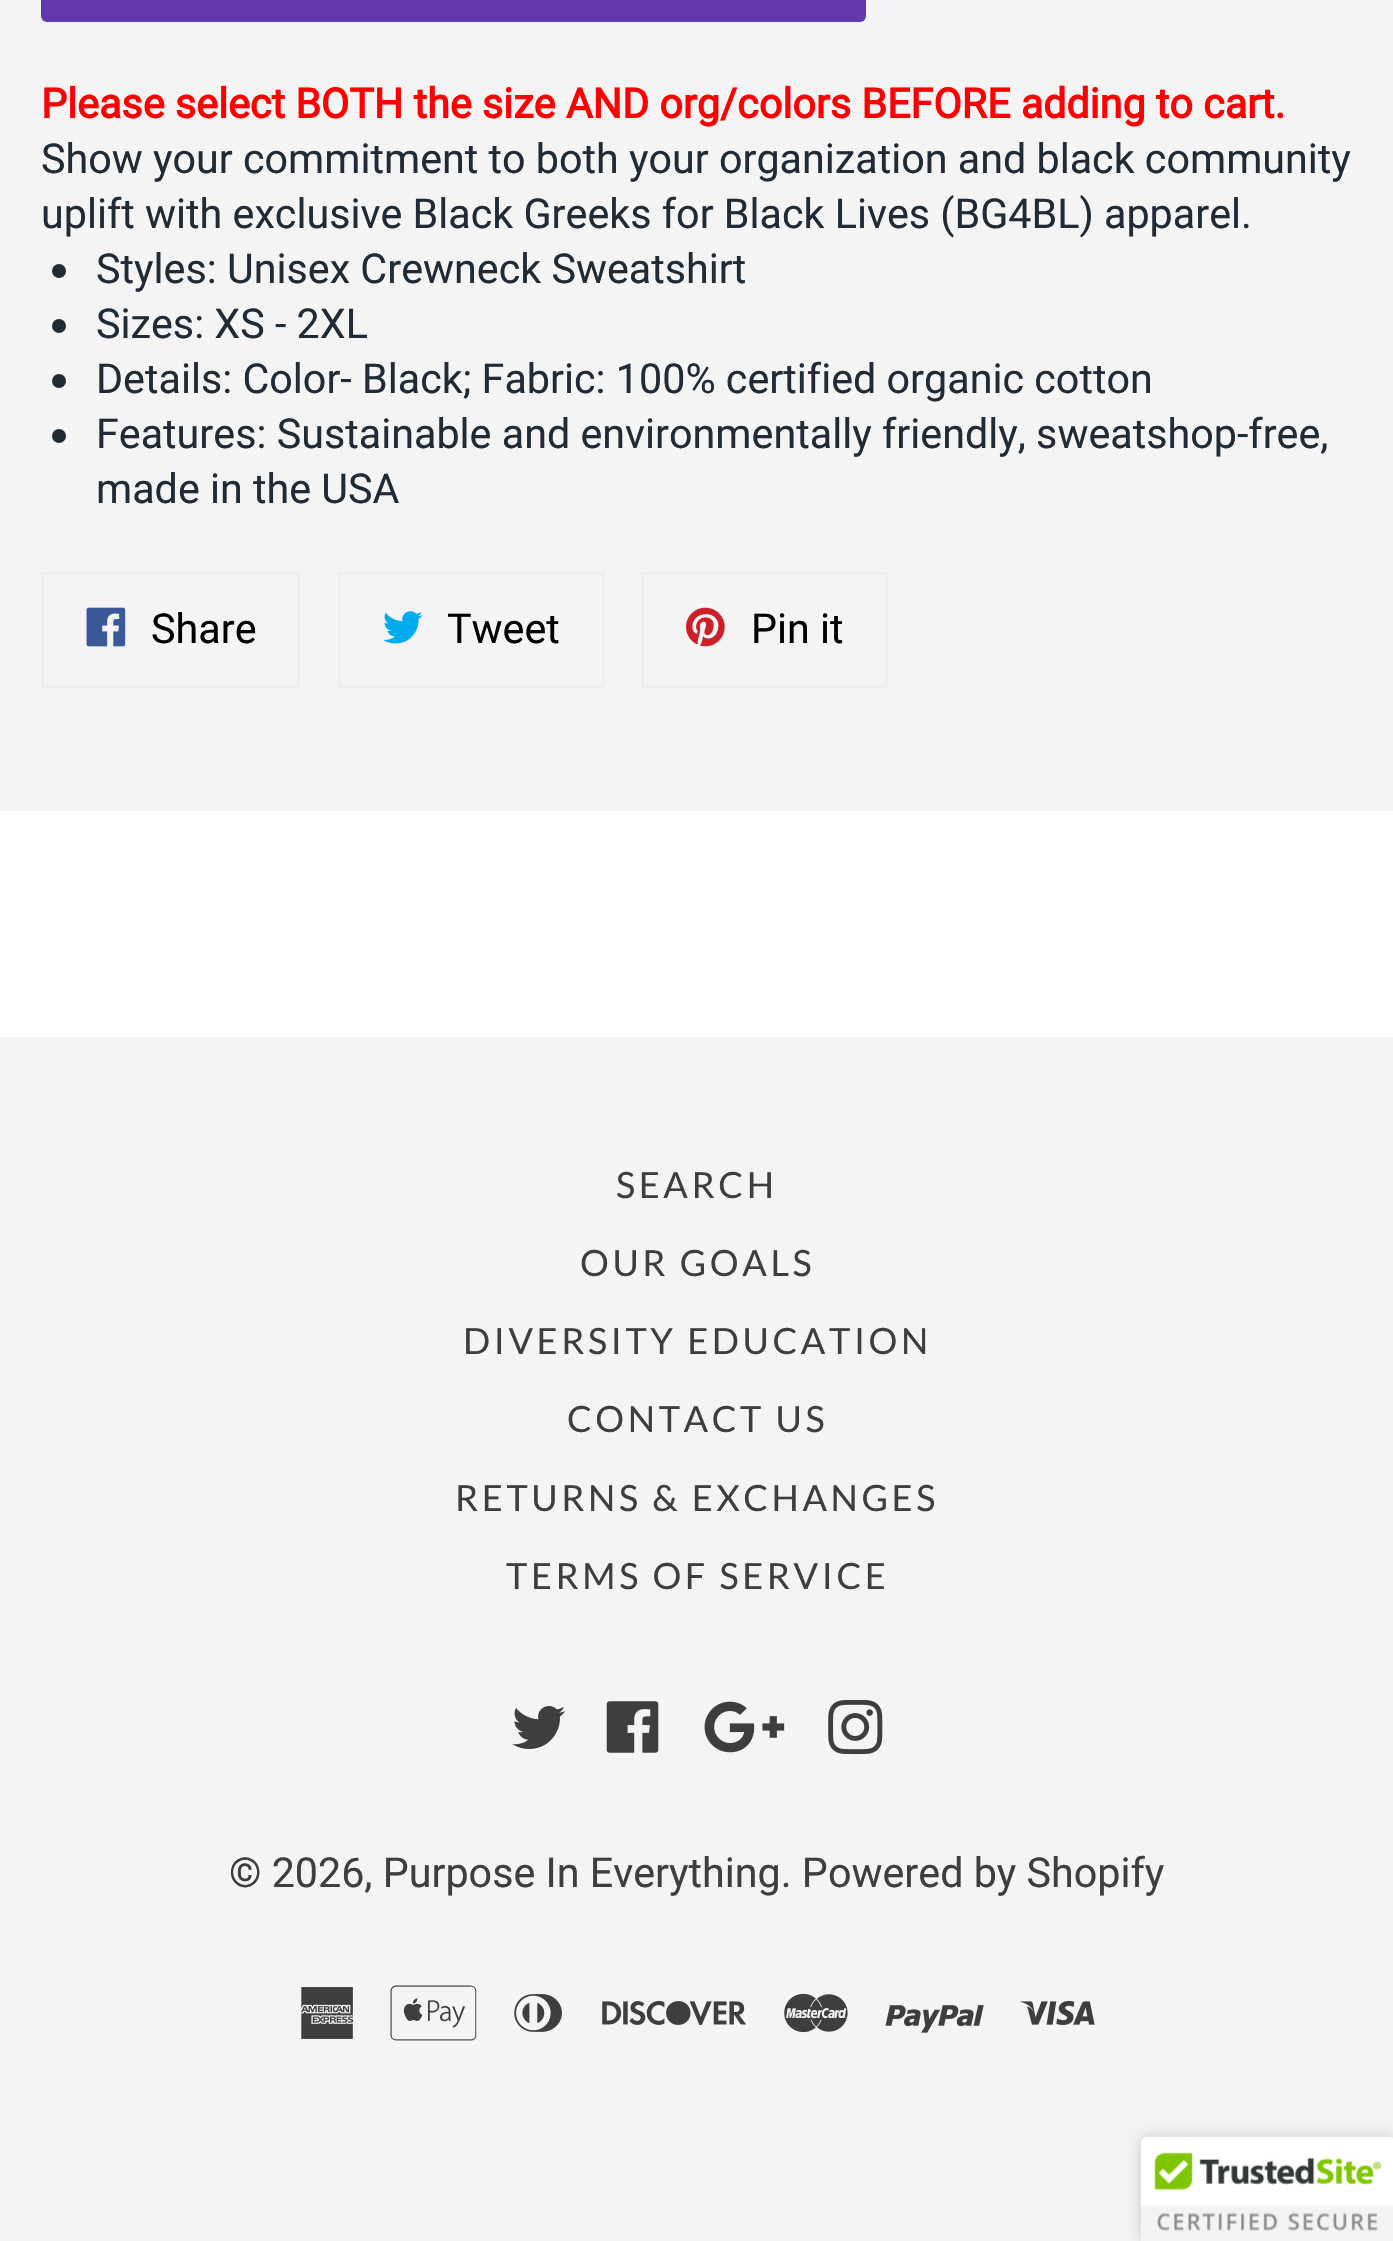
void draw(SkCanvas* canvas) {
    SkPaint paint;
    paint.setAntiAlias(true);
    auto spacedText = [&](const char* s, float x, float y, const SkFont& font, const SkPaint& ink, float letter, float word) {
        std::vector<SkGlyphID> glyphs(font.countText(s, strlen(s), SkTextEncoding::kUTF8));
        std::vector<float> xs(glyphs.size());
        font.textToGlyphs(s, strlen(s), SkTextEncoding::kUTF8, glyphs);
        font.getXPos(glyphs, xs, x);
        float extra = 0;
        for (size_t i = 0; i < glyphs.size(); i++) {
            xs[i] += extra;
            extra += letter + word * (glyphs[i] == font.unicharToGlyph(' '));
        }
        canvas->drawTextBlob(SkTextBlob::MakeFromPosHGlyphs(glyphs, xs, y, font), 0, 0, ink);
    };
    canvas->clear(0xFFF4F4F4);
    paint.setColor(0xFF6338AD);
    canvas->drawRoundRect(SkRect::MakeXYWH(41, -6, 825, 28), 6, 6, paint);
    SkFont font1(fontMgr->matchFamilyStyle("Roboto", SkFontStyle::Bold()), 41.25f);
    font1.setSubpixel(true);
    paint.setColor(0xFFFF0000);
    canvas->drawString("Please select BOTH the size AND org/colors BEFORE adding to cart.", 41, 118, font1, paint);
    SkFont font2(fontMgr->matchFamilyStyle("Roboto", SkFontStyle::Normal()), 41.25f);
    font2.setSubpixel(true);
    paint.setColor(0xFF212B36);
    canvas->drawString("Show your commitment to both your organization and black community", 41, 173, font2, paint);
    canvas->drawString("uplift with exclusive Black Greeks for Black Lives (BG4BL) apparel.", 41, 228, font2, paint);
    canvas->drawCircle(59, 271, 7, paint);
    canvas->drawString("Styles: Unisex Crewneck Sweatshirt", 96, 283, font2, paint);
    canvas->drawCircle(59, 326, 7, paint);
    canvas->drawString("Sizes: XS - 2XL", 96, 338, font2, paint);
    canvas->drawCircle(59, 381, 7, paint);
    canvas->drawString("Details: Color- Black; Fabric: 100% certified organic cotton", 96, 393, font2, paint);
    canvas->drawCircle(59, 436, 7, paint);
    canvas->drawString("Features: Sustainable and environmentally friendly, sweatshop-free,", 96, 448, font2, paint);
    canvas->drawString("made in the USA", 96, 503, font2, paint);
    paint.setStyle(SkPaint::kStroke_Style);
    paint.setStrokeWidth(3);
    paint.setColor(0xFFECEFF1);
    canvas->drawRect(SkRect::MakeXYWH(42.5f, 573.5f, 256, 113), paint);
    canvas->drawImageRect(SkImages::DeferredFromEncodedData(SkData::MakeFromFileName("img1.png")), SkRect::MakeXYWH(86, 607, 40, 40), SkSamplingOptions());
    paint.setStyle(SkPaint::kFill_Style);
    paint.setColor(0xFF000000);
    canvas->drawString("Share", 151, 643, font2, paint);
    paint.setStyle(SkPaint::kStroke_Style);
    paint.setColor(0xFFECEFF1);
    canvas->drawRect(SkRect::MakeXYWH(339.5f, 573.5f, 264, 113), paint);
    canvas->drawImageRect(SkImages::DeferredFromEncodedData(SkData::MakeFromFileName("img2.png")), SkRect::MakeXYWH(383, 611, 40, 33), SkSamplingOptions());
    paint.setStyle(SkPaint::kFill_Style);
    paint.setColor(0xFF000000);
    canvas->drawString("Tweet", 447, 643, font2, paint);
    paint.setStyle(SkPaint::kStroke_Style);
    paint.setColor(0xFFECEFF1);
    canvas->drawRect(SkRect::MakeXYWH(642.5f, 573.5f, 244, 113), paint);
    canvas->drawImageRect(SkImages::DeferredFromEncodedData(SkData::MakeFromFileName("img3.png")), SkRect::MakeXYWH(686, 607, 39, 40), SkSamplingOptions());
    paint.setStyle(SkPaint::kFill_Style);
    paint.setColor(0xFF000000);
    canvas->drawString("Pin it", 751, 643, font2, paint);
    paint.setColor(0xFFFFFFFF);
    canvas->drawRect(SkRect::MakeXYWH(0, 811, 1393, 226), paint);
    SkFont font3(fontMgr->matchFamilyStyle("Lato", SkFontStyle::Normal()), 36.1f);
    font3.setSubpixel(true);
    paint.setColor(0xFF3E3E3E);
    spacedText("SEARCH", 616, 1198, font3, paint, 3.6f, 0);
    spacedText("OUR GOALS", 580, 1276, font3, paint, 3.6f, 0);
    spacedText("DIVERSITY EDUCATION", 463, 1354, font3, paint, 3.6f, 0);
    spacedText("CONTACT US", 567, 1432, font3, paint, 3.6f, 0);
    spacedText("RETURNS & EXCHANGES", 455, 1511, font3, paint, 3.6f, 0);
    spacedText("TERMS OF SERVICE", 506, 1589, font3, paint, 3.6f, 0);
    canvas->drawImageRect(SkImages::DeferredFromEncodedData(SkData::MakeFromFileName("img4.png")), SkRect::MakeXYWH(512, 1706, 54, 43), SkSamplingOptions());
    canvas->drawImageRect(SkImages::DeferredFromEncodedData(SkData::MakeFromFileName("img5.png")), SkRect::MakeXYWH(606, 1701, 53, 52), SkSamplingOptions());
    canvas->drawImageRect(SkImages::DeferredFromEncodedData(SkData::MakeFromFileName("img6.png")), SkRect::MakeXYWH(704, 1701, 81, 52), SkSamplingOptions());
    canvas->drawImageRect(SkImages::DeferredFromEncodedData(SkData::MakeFromFileName("img7.png")), SkRect::MakeXYWH(828, 1699, 55, 56), SkSamplingOptions());
    canvas->drawString("© 2026, Purpose In Everything. Powered by Shopify", 229, 1887, font2, paint);
    canvas->drawImageRect(SkImages::DeferredFromEncodedData(SkData::MakeFromFileName("img8.png")), SkRect::MakeXYWH(301, 1987, 53, 52), SkSamplingOptions());
    canvas->drawImageRect(SkImages::DeferredFromEncodedData(SkData::MakeFromFileName("img9.png")), SkRect::MakeXYWH(390, 1985, 87, 56), SkSamplingOptions());
    canvas->drawImageRect(SkImages::DeferredFromEncodedData(SkData::MakeFromFileName("img10.png")), SkRect::MakeXYWH(514, 1994, 48, 38), SkSamplingOptions());
    canvas->drawImageRect(SkImages::DeferredFromEncodedData(SkData::MakeFromFileName("img11.png")), SkRect::MakeXYWH(602, 2000, 145, 25), SkSamplingOptions());
    canvas->drawImageRect(SkImages::DeferredFromEncodedData(SkData::MakeFromFileName("img12.png")), SkRect::MakeXYWH(784, 1993, 64, 40), SkSamplingOptions());
    canvas->drawImageRect(SkImages::DeferredFromEncodedData(SkData::MakeFromFileName("img13.png")), SkRect::MakeXYWH(885, 2005, 99, 28), SkSamplingOptions());
    canvas->drawImageRect(SkImages::DeferredFromEncodedData(SkData::MakeFromFileName("img14.png")), SkRect::MakeXYWH(1020, 2000, 75, 25), SkSamplingOptions());
    paint.setColor(0x33000000);
    paint.setMaskFilter(SkMaskFilter::MakeBlur(kNormal_SkBlurStyle, 7));
    canvas->drawRoundRect(SkRect::MakeXYWH(1141, 2137, 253, 104), 6, 6, paint);
    paint.setMaskFilter(nullptr);
    paint.setColor(0xFFFFFFFF);
    canvas->drawPath(SkPathBuilder().moveTo(1147, 2137).lineTo(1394, 2137).lineTo(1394, 2241).lineTo(1141, 2241).lineTo(1141, 2143).cubicTo(1141, 2139.5f, 1143.5f, 2137, 1147, 2137).close().detach(), paint);
    canvas->drawImageRect(SkImages::DeferredFromEncodedData(SkData::MakeFromFileName("img15.png")), SkRect::MakeXYWH(1141, 2136, 252, 105), SkSamplingOptions());
}
